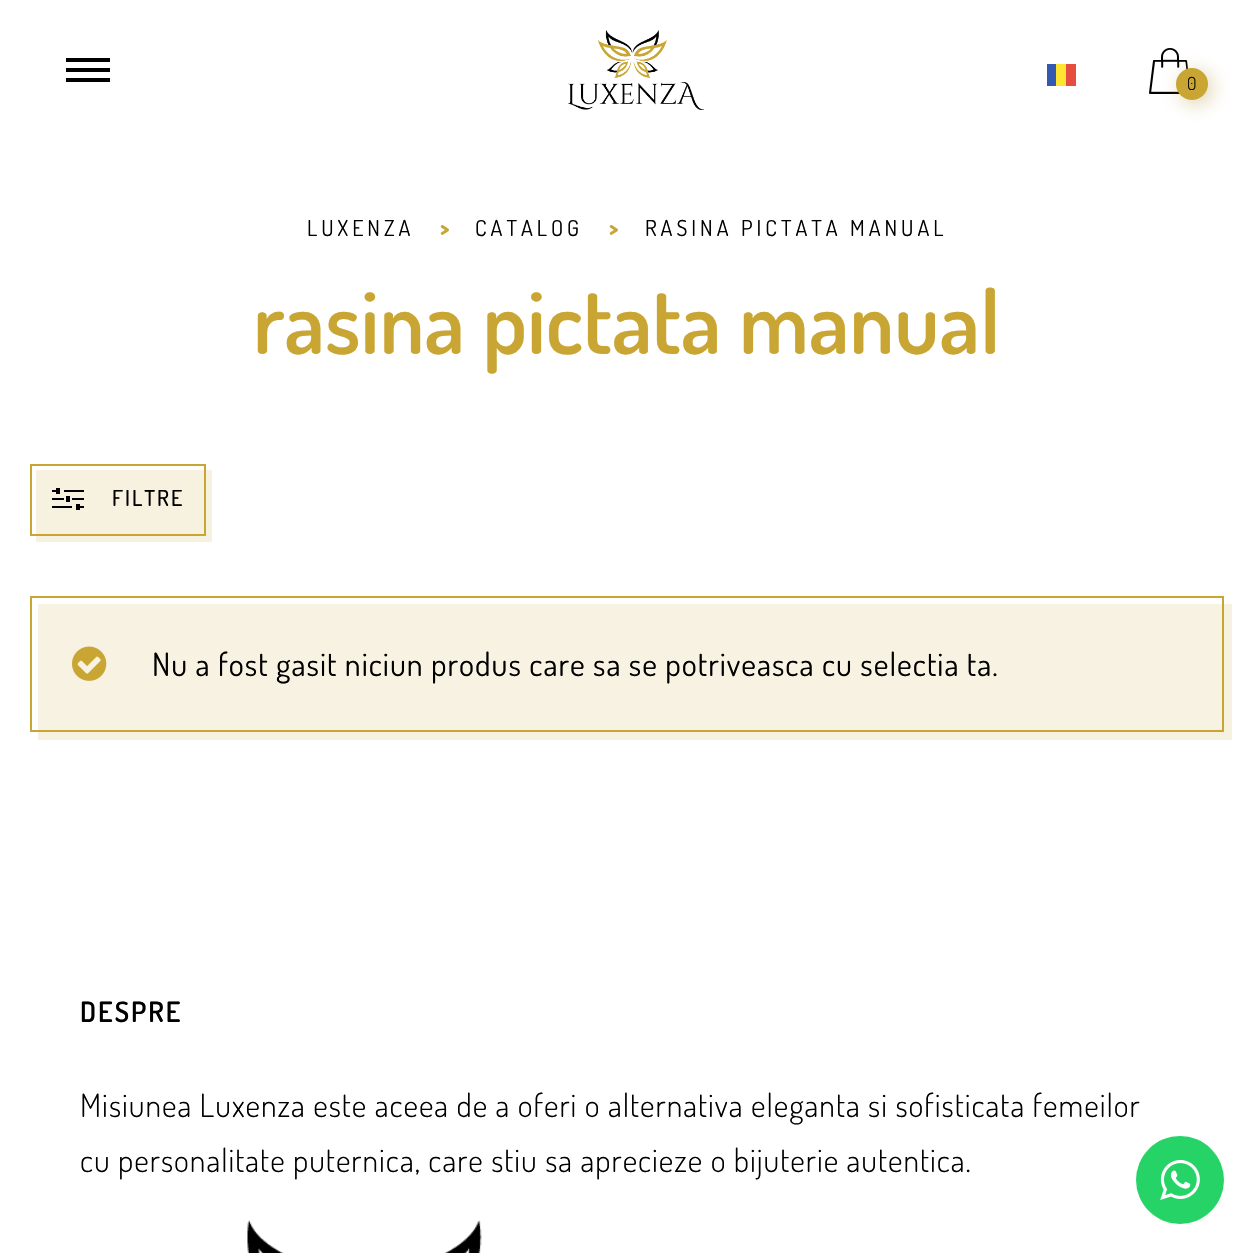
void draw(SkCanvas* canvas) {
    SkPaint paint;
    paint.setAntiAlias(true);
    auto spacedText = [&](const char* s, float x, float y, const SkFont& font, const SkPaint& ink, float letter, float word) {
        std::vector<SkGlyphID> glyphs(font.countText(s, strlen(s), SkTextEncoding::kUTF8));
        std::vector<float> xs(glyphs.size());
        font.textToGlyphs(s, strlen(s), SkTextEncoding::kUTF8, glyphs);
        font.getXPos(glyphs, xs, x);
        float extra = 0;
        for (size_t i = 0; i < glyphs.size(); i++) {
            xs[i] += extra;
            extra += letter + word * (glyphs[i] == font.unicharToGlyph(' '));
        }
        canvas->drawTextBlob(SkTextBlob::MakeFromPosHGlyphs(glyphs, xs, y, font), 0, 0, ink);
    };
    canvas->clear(0xFFFFFFFF);
    paint.setColor(0xFF000000);
    canvas->drawRect(SkRect::MakeXYWH(66, 68, 44, 4), paint);
    canvas->drawRect(SkRect::MakeXYWH(66, 58, 44, 4), paint);
    canvas->drawRect(SkRect::MakeXYWH(66, 78, 44, 4), paint);
    canvas->drawImageRect(SkImages::DeferredFromEncodedData(SkData::MakeFromFileName("img1.png")), SkRect::MakeXYWH(568, 30, 136, 80), SkSamplingOptions());
    paint.setColor(0xFF335AB0);
    canvas->drawRect(SkRect::MakeXYWH(1047, 64, 9, 22), paint);
    paint.setColor(0xFFFFE533);
    canvas->drawRect(SkRect::MakeXYWH(1056, 64, 10, 22), paint);
    paint.setColor(0xFFE54D40);
    canvas->drawRect(SkRect::MakeXYWH(1066, 64, 10, 22), paint);
    canvas->drawImageRect(SkImages::DeferredFromEncodedData(SkData::MakeFromFileName("img2.png")), SkRect::MakeXYWH(1149, 48, 39, 46), SkSamplingOptions());
    paint.setColor(0x66AB8D2B);
    paint.setMaskFilter(SkMaskFilter::MakeBlur(kNormal_SkBlurStyle, 10));
    canvas->drawRoundRect(SkRect::MakeXYWH(1180, 72, 32, 32), 16, 16, paint);
    paint.setMaskFilter(nullptr);
    paint.setColor(0xFFC9A633);
    canvas->drawCircle(1192, 84, 16, paint);
    SkFont font1(fontMgr->matchFamilyStyle("Dosis", SkFontStyle(300, SkFontStyle::kNormal_Width, SkFontStyle::kUpright_Slant)), 18);
    font1.setSubpixel(true);
    paint.setColor(0xFF000000);
    spacedText("0", 1187, 90, font1, paint, 1, 0);
    SkFont font2(fontMgr->matchFamilyStyle("Dosis", SkFontStyle::Normal()), 22);
    font2.setSubpixel(true);
    spacedText("LUXENZA", 307, 236, font2, paint, 4, 0);
    SkFont font3(fontMgr->matchFamilyStyle("Dosis", SkFontStyle(800, SkFontStyle::kNormal_Width, SkFontStyle::kUpright_Slant)), 22);
    font3.setSubpixel(true);
    paint.setColor(0xFFC9A633);
    spacedText(">", 440, 236, font3, paint, 1, 0);
    paint.setColor(0xFF000000);
    spacedText("CATALOG", 475, 236, font2, paint, 4, 0);
    paint.setColor(0xFFC9A633);
    spacedText(">", 609, 236, font3, paint, 1, 0);
    paint.setColor(0xFF000000);
    spacedText("RASINA PICTATA MANUAL", 645, 236, font2, paint, 4, 0);
    SkFont font4(fontMgr->matchFamilyStyle("Dosis", SkFontStyle(600, SkFontStyle::kNormal_Width, SkFontStyle::kUpright_Slant)), 88);
    font4.setSubpixel(true);
    paint.setColor(0xFFC9A633);
    canvas->drawString("rasina pictata manual", 253, 354, font4, paint);
    paint.setColor(0xFFF7F2E0);
    canvas->drawPath(SkPathBuilder().moveTo(36, 536).lineTo(36, 542).lineTo(212, 542).lineTo(212, 470).lineTo(206, 470).lineTo(206, 536).close().detach(), paint);
    canvas->drawRect(SkRect::MakeXYWH(36, 470, 168, 64), paint);
    paint.setStyle(SkPaint::kStroke_Style);
    paint.setStrokeWidth(2);
    paint.setColor(0xFFC9A633);
    canvas->drawRect(SkRect::MakeXYWH(31, 465, 174, 70), paint);
    canvas->drawImageRect(SkImages::DeferredFromEncodedData(SkData::MakeFromFileName("img3.png")), SkRect::MakeXYWH(52, 488, 32, 22), SkSamplingOptions());
    SkFont font5(fontMgr->matchFamilyStyle("Dosis", SkFontStyle(500, SkFontStyle::kNormal_Width, SkFontStyle::kUpright_Slant)), 22);
    font5.setSubpixel(true);
    paint.setStyle(SkPaint::kFill_Style);
    paint.setColor(0xFF000000);
    spacedText("FILTRE", 112, 506, font5, paint, 2, 0);
    paint.setColor(0xFFF7F2E0);
    canvas->drawPath(SkPathBuilder().moveTo(38, 732).lineTo(38, 740).lineTo(1232, 740).lineTo(1232, 604).lineTo(1224, 604).lineTo(1224, 732).close().detach(), paint);
    paint.setColor(0xFFF7F2E1);
    canvas->drawRect(SkRect::MakeXYWH(38, 604, 1184, 126), paint);
    paint.setStyle(SkPaint::kStroke_Style);
    paint.setColor(0xFFC9A633);
    canvas->drawRect(SkRect::MakeXYWH(31, 597, 1192, 134), paint);
    canvas->drawImageRect(SkImages::DeferredFromEncodedData(SkData::MakeFromFileName("img4.png")), SkRect::MakeXYWH(72, 646, 35, 35), SkSamplingOptions());
    SkFont font6(fontMgr->matchFamilyStyle("Dosis", SkFontStyle::Normal()), 32);
    font6.setSubpixel(true);
    paint.setStyle(SkPaint::kFill_Style);
    paint.setColor(0xFF000000);
    spacedText("Nu a fost gasit niciun produs care sa se potriveasca cu selectia ta.", 152, 676, font6, paint, 1, 0);
    SkFont font7(fontMgr->matchFamilyStyle("Dosis", SkFontStyle(600, SkFontStyle::kNormal_Width, SkFontStyle::kUpright_Slant)), 28);
    font7.setSubpixel(true);
    spacedText("DESPRE", 80, 1022, font7, paint, 2, 0);
    SkFont font8(fontMgr->matchFamilyStyle("Dosis", SkFontStyle(300, SkFontStyle::kNormal_Width, SkFontStyle::kUpright_Slant)), 32);
    font8.setSubpixel(true);
    spacedText("Misiunea Luxenza este aceea de a oferi o alternativa eleganta si sofisticata femeilor", 80, 1117, font8, paint, 1, 0);
    spacedText("cu personalitate puternica, care stiu sa aprecieze o bijuterie autentica.", 80, 1172, font8, paint, 1, 0);
    canvas->drawImageRect(SkImages::DeferredFromEncodedData(SkData::MakeFromFileName("img5.png")), SkRect::MakeXYWH(247, 1220, 235, 33), SkSamplingOptions());
    paint.setColor(0xFF25D366);
    canvas->drawCircle(1180, 1180, 44, paint);
    canvas->drawImageRect(SkImages::DeferredFromEncodedData(SkData::MakeFromFileName("img6.png")), SkRect::MakeXYWH(1160, 1160, 40, 40), SkSamplingOptions());
}
